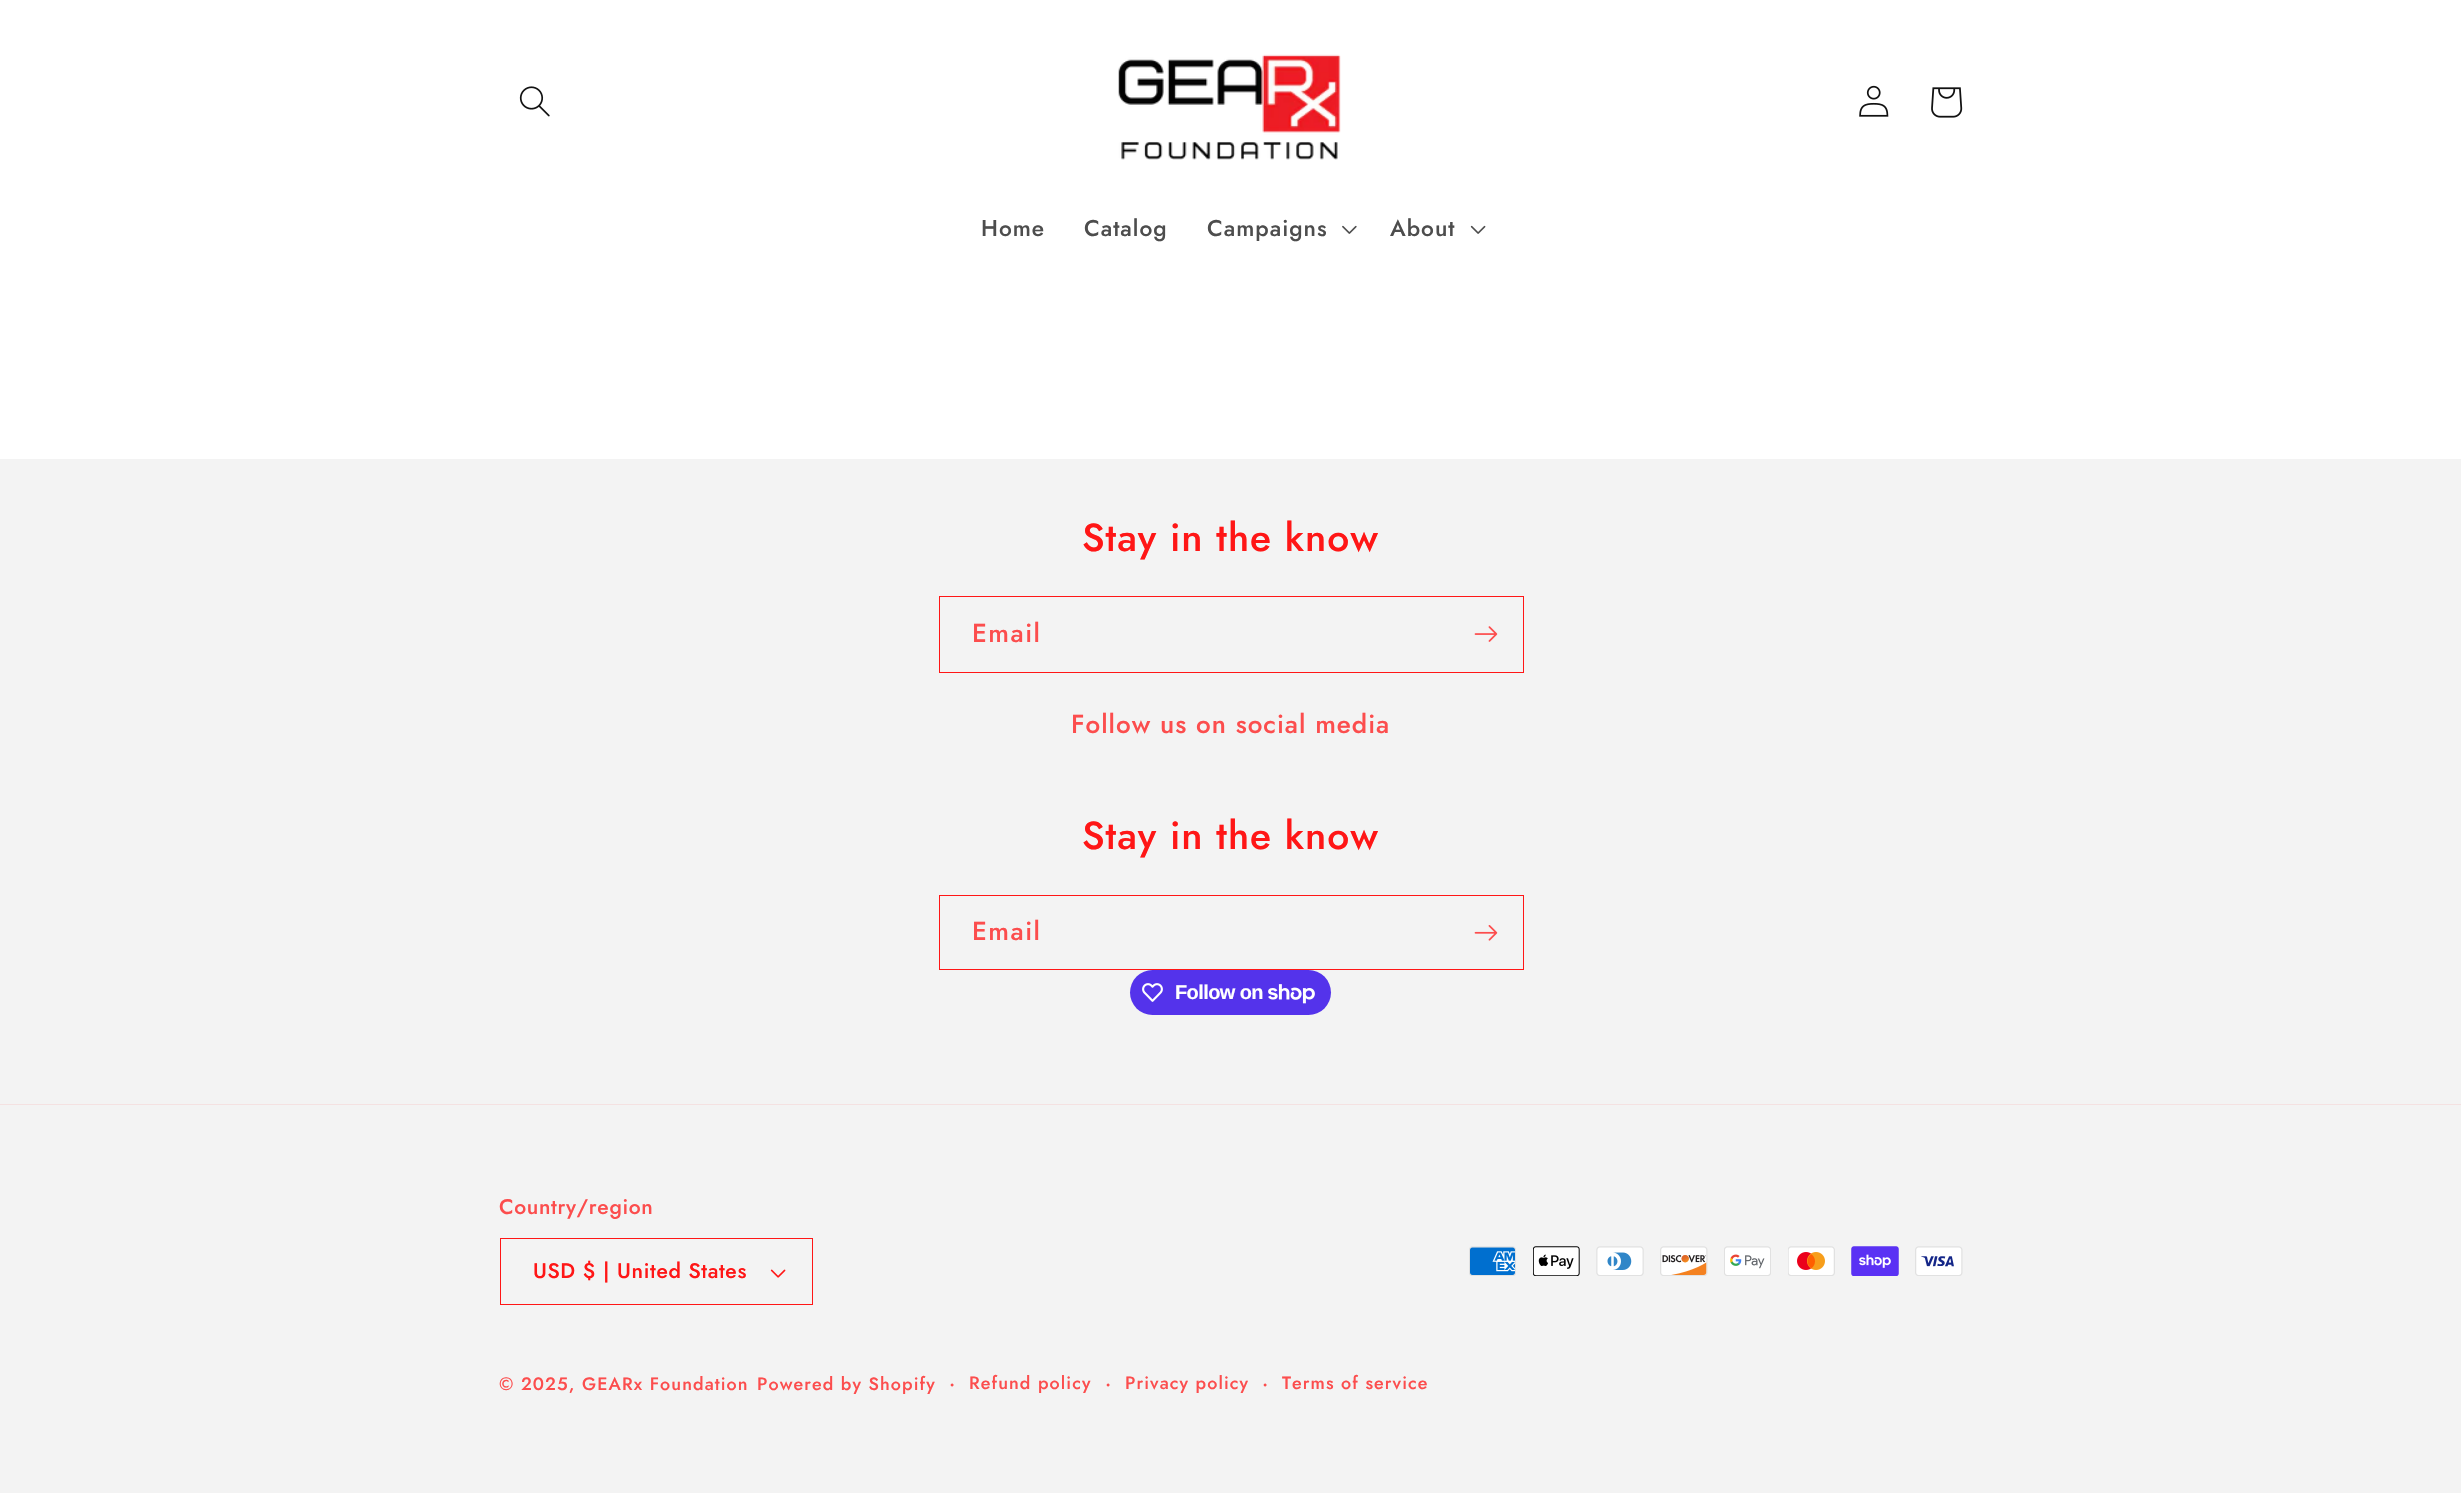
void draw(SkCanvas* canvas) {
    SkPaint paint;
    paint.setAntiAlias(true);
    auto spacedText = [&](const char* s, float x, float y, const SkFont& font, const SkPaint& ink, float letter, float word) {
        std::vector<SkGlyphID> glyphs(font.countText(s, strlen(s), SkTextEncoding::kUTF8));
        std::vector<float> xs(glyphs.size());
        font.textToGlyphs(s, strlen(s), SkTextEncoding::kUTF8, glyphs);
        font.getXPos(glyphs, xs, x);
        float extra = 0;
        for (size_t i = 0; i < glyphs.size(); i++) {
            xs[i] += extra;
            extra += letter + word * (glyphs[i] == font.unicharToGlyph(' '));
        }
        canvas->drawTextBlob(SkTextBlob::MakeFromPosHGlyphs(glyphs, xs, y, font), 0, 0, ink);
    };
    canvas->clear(0xFFFFFFFF);
    canvas->drawImageRect(SkImages::DeferredFromEncodedData(SkData::MakeFromFileName("img1.png")), SkRect::MakeXYWH(519, 86, 31, 31), SkSamplingOptions());
    canvas->drawImageRect(SkImages::DeferredFromEncodedData(SkData::MakeFromFileName("img2.png")), SkRect::MakeXYWH(1118, 54, 223, 106), SkSamplingOptions());
    canvas->drawImageRect(SkImages::DeferredFromEncodedData(SkData::MakeFromFileName("img3.png")), SkRect::MakeXYWH(1859, 85, 30, 32), SkSamplingOptions());
    canvas->drawImageRect(SkImages::DeferredFromEncodedData(SkData::MakeFromFileName("img4.png")), SkRect::MakeXYWH(1931, 87, 32, 31), SkSamplingOptions());
    SkFont font1(fontMgr->matchFamilyStyle("Jost", SkFontStyle(500, SkFontStyle::kNormal_Width, SkFontStyle::kUpright_Slant)), 22.75f);
    font1.setSubpixel(true);
    paint.setColor(0xFF4D4D4D);
    spacedText("Home", 981, 236, font1, paint, 1, 0);
    spacedText("Catalog", 1084, 236, font1, paint, 1, 0);
    spacedText("Campaigns", 1207, 236, font1, paint, 1, 0);
    canvas->drawImageRect(SkImages::DeferredFromEncodedData(SkData::MakeFromFileName("img5.png")), SkRect::MakeXYWH(1342, 225, 15, 9), SkSamplingOptions());
    spacedText("About", 1390, 236, font1, paint, 1, 0);
    canvas->drawImageRect(SkImages::DeferredFromEncodedData(SkData::MakeFromFileName("img6.png")), SkRect::MakeXYWH(1470, 225, 16, 9), SkSamplingOptions());
    paint.setColor(0xFFF3F3F3);
    canvas->drawRect(SkRect::MakeXYWH(0, 459, 2461, 511), paint);
    SkFont font2(fontMgr->matchFamilyStyle("Jost", SkFontStyle(500, SkFontStyle::kNormal_Width, SkFontStyle::kUpright_Slant)), 39);
    font2.setSubpixel(true);
    paint.setColor(0xFFFF1616);
    spacedText("Stay in the know", 1082, 551, font2, paint, 1, 0);
    paint.setStyle(SkPaint::kStroke_Style);
    paint.setStrokeWidth(1);
    canvas->drawRect(SkRect::MakeXYWH(939.5f, 596.5f, 584, 76), paint);
    SkFont font3(fontMgr->matchFamilyStyle("Jost", SkFontStyle(500, SkFontStyle::kNormal_Width, SkFontStyle::kUpright_Slant)), 26);
    font3.setSubpixel(true);
    paint.setStyle(SkPaint::kFill_Style);
    paint.setColor(0xFFFC4D4D);
    spacedText("Email", 972, 642, font3, paint, 1.5f, 0);
    canvas->drawImageRect(SkImages::DeferredFromEncodedData(SkData::MakeFromFileName("img7.png")), SkRect::MakeXYWH(1474, 626, 24, 16), SkSamplingOptions());
    spacedText("Follow us on social media", 1071, 733, font3, paint, 1, 0);
    paint.setColor(0xFFFF1616);
    spacedText("Stay in the know", 1082, 849, font2, paint, 1, 0);
    paint.setStyle(SkPaint::kStroke_Style);
    canvas->drawRect(SkRect::MakeXYWH(939.5f, 895.5f, 584, 74), paint);
    paint.setStyle(SkPaint::kFill_Style);
    paint.setColor(0xFFFC4D4D);
    spacedText("Email", 972, 940, font3, paint, 1.5f, 0);
    canvas->drawImageRect(SkImages::DeferredFromEncodedData(SkData::MakeFromFileName("img8.png")), SkRect::MakeXYWH(1474, 925, 24, 16), SkSamplingOptions());
    paint.setColor(0xFFF3F3F3);
    canvas->drawRect(SkRect::MakeXYWH(0, 970, 2461, 523), paint);
    paint.setColor(0xFF5433EB);
    canvas->drawRoundRect(SkRect::MakeXYWH(1130, 970, 201, 45), 22.5f, 22.5f, paint);
    canvas->drawImageRect(SkImages::DeferredFromEncodedData(SkData::MakeFromFileName("img9.png")), SkRect::MakeXYWH(1142, 983, 21, 19), SkSamplingOptions());
    SkFont font4(fontMgr->matchFamilyStyle("Liberation Sans", SkFontStyle::Bold()), 20);
    font4.setSubpixel(true);
    paint.setColor(0xFFFFFFFF);
    spacedText("Follow on", 1175, 999, font4, paint, -0.6f, 0);
    canvas->drawImageRect(SkImages::DeferredFromEncodedData(SkData::MakeFromFileName("img10.png")), SkRect::MakeXYWH(1268, 984, 47, 20), SkSamplingOptions());
    paint.setColor(0xFFF4E1E1);
    canvas->drawRect(SkRect::MakeXYWH(0, 1104, 2461, 1), paint);
    SkFont font5(fontMgr->matchFamilyStyle("Jost", SkFontStyle(500, SkFontStyle::kNormal_Width, SkFontStyle::kUpright_Slant)), 21.1f);
    font5.setSubpixel(true);
    paint.setColor(0xFFFC4D4D);
    spacedText("Country/region", 499, 1214, font5, paint, 0.65f, 0);
    canvas->drawImageRect(SkImages::DeferredFromEncodedData(SkData::MakeFromFileName("img11.png")), SkRect::MakeXYWH(770, 1269, 16, 9), SkSamplingOptions());
    paint.setStyle(SkPaint::kStroke_Style);
    paint.setColor(0xFFFF1616);
    canvas->drawRect(SkRect::MakeXYWH(500.5f, 1238.5f, 312, 66), paint);
    paint.setStyle(SkPaint::kFill_Style);
    spacedText("USD $ | United States", 533, 1278, font5, paint, 0.65f, 0);
    canvas->drawImageRect(SkImages::DeferredFromEncodedData(SkData::MakeFromFileName("img12.png")), SkRect::MakeXYWH(1469, 1246, 47, 30), SkSamplingOptions());
    canvas->drawImageRect(SkImages::DeferredFromEncodedData(SkData::MakeFromFileName("img13.png")), SkRect::MakeXYWH(1533, 1246, 47, 30), SkSamplingOptions());
    canvas->drawImageRect(SkImages::DeferredFromEncodedData(SkData::MakeFromFileName("img14.png")), SkRect::MakeXYWH(1596, 1246, 48, 30), SkSamplingOptions());
    canvas->drawImageRect(SkImages::DeferredFromEncodedData(SkData::MakeFromFileName("img15.png")), SkRect::MakeXYWH(1660, 1246, 48, 30), SkSamplingOptions());
    canvas->drawImageRect(SkImages::DeferredFromEncodedData(SkData::MakeFromFileName("img16.png")), SkRect::MakeXYWH(1724, 1246, 47, 30), SkSamplingOptions());
    canvas->drawImageRect(SkImages::DeferredFromEncodedData(SkData::MakeFromFileName("img17.png")), SkRect::MakeXYWH(1788, 1246, 47, 30), SkSamplingOptions());
    canvas->drawImageRect(SkImages::DeferredFromEncodedData(SkData::MakeFromFileName("img18.png")), SkRect::MakeXYWH(1851, 1246, 48, 30), SkSamplingOptions());
    canvas->drawImageRect(SkImages::DeferredFromEncodedData(SkData::MakeFromFileName("img19.png")), SkRect::MakeXYWH(1915, 1246, 48, 30), SkSamplingOptions());
    SkFont font6(fontMgr->matchFamilyStyle("Jost", SkFontStyle(500, SkFontStyle::kNormal_Width, SkFontStyle::kUpright_Slant)), 17.9f);
    font6.setSubpixel(true);
    paint.setColor(0xFFFC4D4D);
    spacedText("© 2025, GEARx Foundation", 499, 1390, font6, paint, 1.1f, 0);
    spacedText("Powered by Shopify", 757, 1390, font6, paint, 1.1f, 0);
    SkFont font7(fontMgr->matchFamilyStyle("Jost", SkFontStyle(500, SkFontStyle::kNormal_Width, SkFontStyle::kUpright_Slant)), 20);
    font7.setSubpixel(true);
    spacedText("·", 949, 1390, font7, paint, 1.1f, 0);
    spacedText("Refund policy", 969, 1389, font6, paint, 1.1f, 0);
    spacedText("·", 1105, 1390, font7, paint, 1.1f, 0);
    spacedText("Privacy policy", 1125, 1389, font6, paint, 1.1f, 0);
    spacedText("·", 1262, 1390, font7, paint, 1.1f, 0);
    spacedText("Terms of service", 1282, 1389, font6, paint, 1.1f, 0);
}
